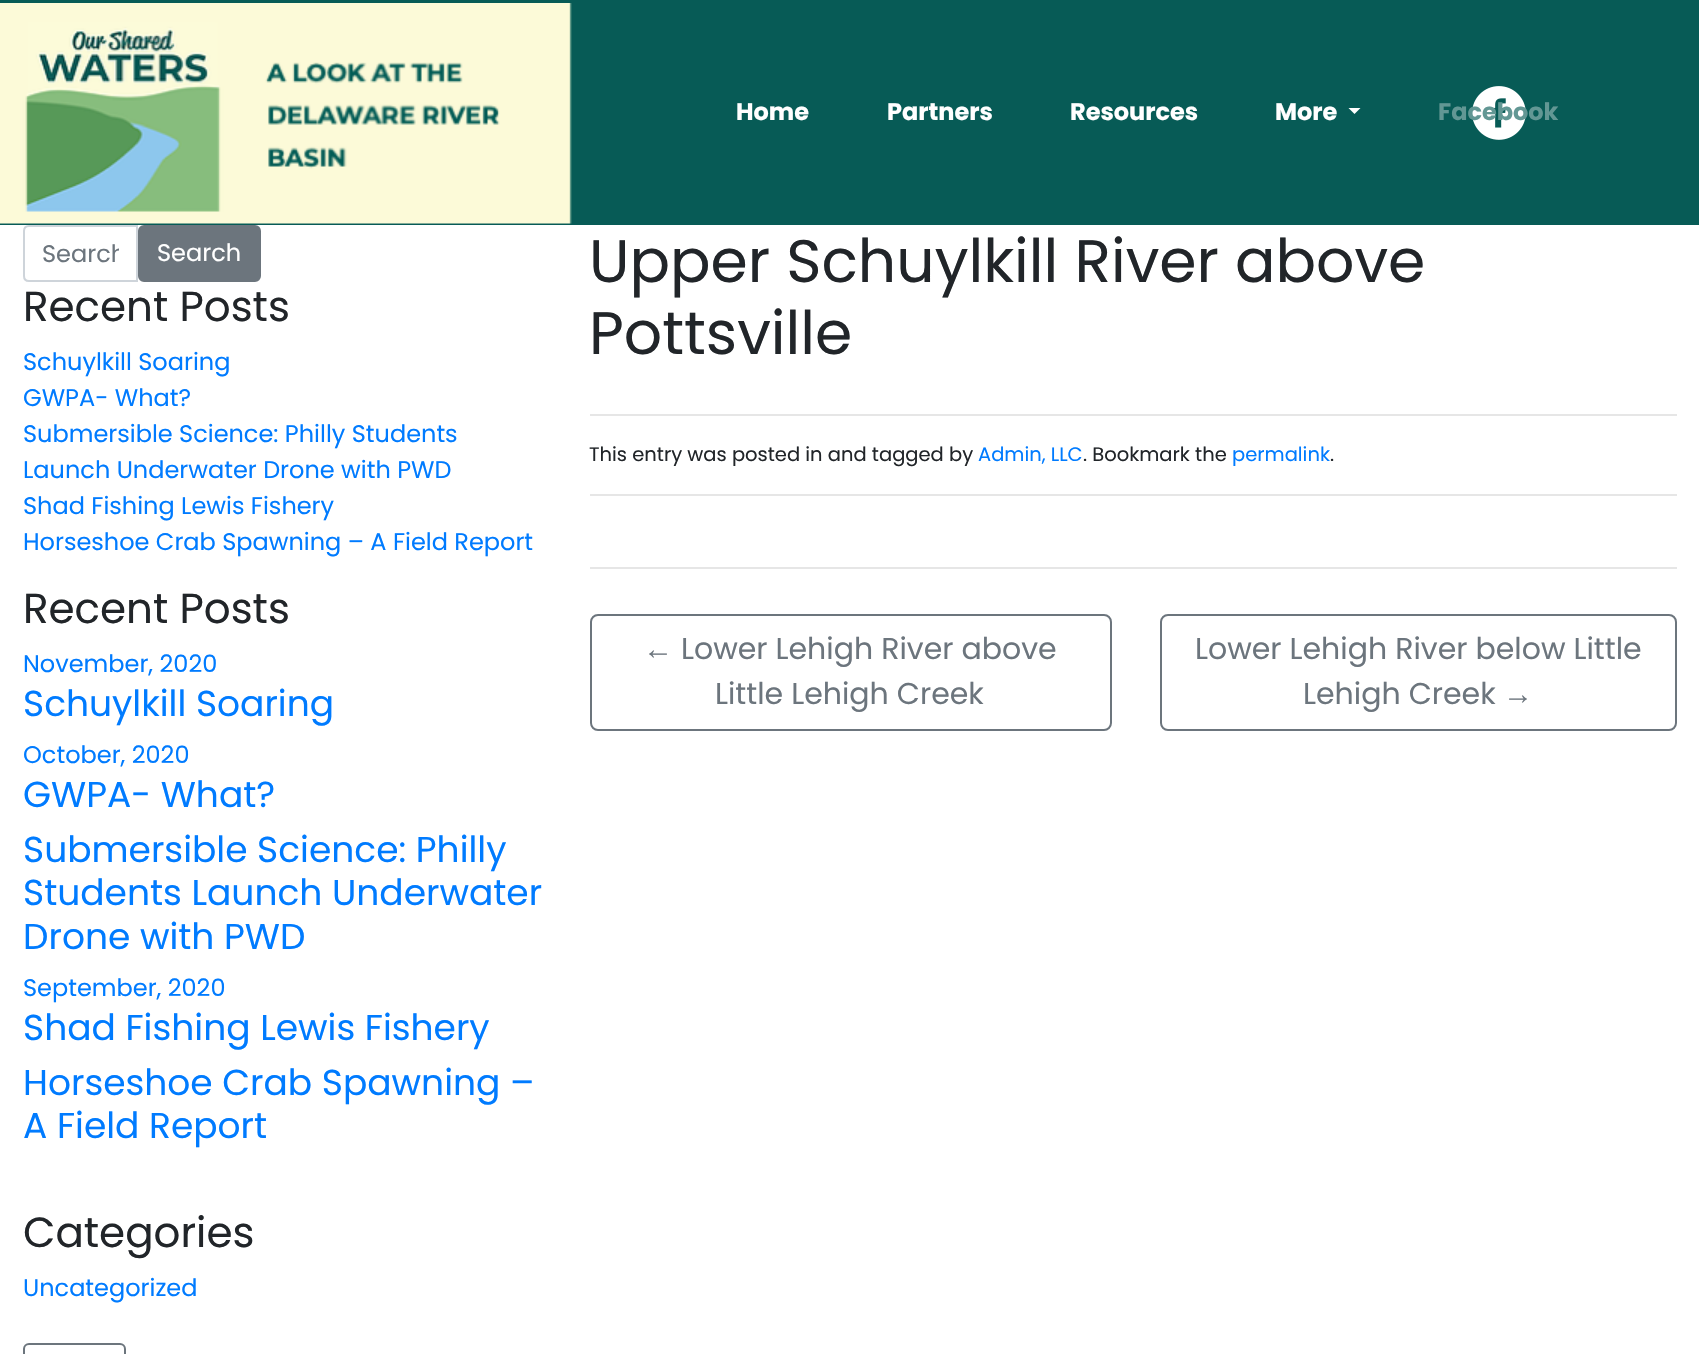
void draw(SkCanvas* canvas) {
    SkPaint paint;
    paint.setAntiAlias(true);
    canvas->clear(0xFFFFFFFF);
    paint.setColor(0xFF075B56);
    canvas->drawRect(SkRect::MakeXYWH(0, 0, 1699, 225), paint);
    canvas->drawImageRect(SkImages::DeferredFromEncodedData(SkData::MakeFromFileName("img1.png")), SkRect::MakeXYWH(0, 3, 572, 221), SkSamplingOptions());
    SkFont font1(fontMgr->matchFamilyStyle("Poppins", SkFontStyle::Bold()), 24);
    font1.setSubpixel(true);
    paint.setColor(0xFFFFFFFF);
    canvas->drawString("Home", 736, 120, font1, paint);
    canvas->drawString("Partners", 887, 120, font1, paint);
    canvas->drawString("Resources", 1070, 120, font1, paint);
    canvas->drawString("More", 1275, 120, font1, paint);
    canvas->drawPath(SkPathBuilder().moveTo(1348.5f, 108).lineTo(1360.5f, 108).lineTo(1354.5f, 114).close().detach(), paint);
    canvas->drawImageRect(SkImages::DeferredFromEncodedData(SkData::MakeFromFileName("img2.png")), SkRect::MakeXYWH(1472, 86, 54, 54), SkSamplingOptions());
    paint.setColor(0xFF629794);
    canvas->drawString("Facebook", 1438, 120, font1, paint);
    paint.setStyle(SkPaint::kStroke_Style);
    paint.setStrokeWidth(2);
    paint.setColor(0xFFCED4DA);
    canvas->drawPath(SkPathBuilder().moveTo(29, 226).lineTo(137, 226).lineTo(137, 281).lineTo(29, 281).cubicTo(26, 281, 24, 279, 24, 276).lineTo(24, 231).cubicTo(24, 228, 26, 226, 29, 226).close().detach(), paint);
    canvas->save();
    canvas->clipRect(SkRect::MakeXYWH(42, 236, 77, 37));
    SkFont font2(fontMgr->matchFamilyStyle("Poppins", SkFontStyle::Normal()), 24);
    font2.setSubpixel(true);
    paint.setStyle(SkPaint::kFill_Style);
    paint.setColor(0xFF6C757D);
    canvas->drawString("Search", 42, 262, font2, paint);
    canvas->restore();
    canvas->drawRoundRect(SkRect::MakeXYWH(139, 226, 121, 55), 5, 5, paint);
    paint.setStyle(SkPaint::kStroke_Style);
    canvas->drawRoundRect(SkRect::MakeXYWH(139, 226, 121, 55), 5, 5, paint);
    paint.setStyle(SkPaint::kFill_Style);
    paint.setColor(0xFFFFFFFF);
    canvas->drawString("Search", 157, 261, font2, paint);
    SkFont font3(fontMgr->matchFamilyStyle("Poppins", SkFontStyle::Normal()), 42);
    font3.setSubpixel(true);
    paint.setColor(0xFF212529);
    canvas->drawString("Recent Posts", 23, 321, font3, paint);
    paint.setColor(0xFF007BFF);
    canvas->drawString("Schuylkill Soaring", 23, 370, font2, paint);
    canvas->drawString("GWPA- What?", 23, 406, font2, paint);
    canvas->drawString("Submersible Science: Philly Students", 23, 442, font2, paint);
    canvas->drawString("Launch Underwater Drone with PWD", 23, 478, font2, paint);
    canvas->drawString("Shad Fishing Lewis Fishery", 23, 514, font2, paint);
    canvas->drawString("Horseshoe Crab Spawning – A Field Report", 23, 550, font2, paint);
    paint.setColor(0xFF212529);
    canvas->drawString("Recent Posts", 23, 623, font3, paint);
    paint.setColor(0xFF007BFF);
    canvas->drawString("November, 2020", 23, 672, font2, paint);
    SkFont font4(fontMgr->matchFamilyStyle("Poppins", SkFontStyle::Normal()), 36);
    font4.setSubpixel(true);
    canvas->drawString("Schuylkill Soaring", 23, 716, font4, paint);
    canvas->drawString("October, 2020", 23, 763, font2, paint);
    canvas->drawString("GWPA- What?", 23, 807, font4, paint);
    canvas->drawString("Submersible Science: Philly", 23, 862, font4, paint);
    canvas->drawString("Students Launch Underwater", 23, 905, font4, paint);
    canvas->drawString("Drone with PWD", 23, 949, font4, paint);
    canvas->drawString("September, 2020", 23, 996, font2, paint);
    canvas->drawString("Shad Fishing Lewis Fishery", 23, 1040, font4, paint);
    canvas->drawString("Horseshoe Crab Spawning –", 23, 1095, font4, paint);
    canvas->drawString("A Field Report", 23, 1138, font4, paint);
    paint.setColor(0xFF212529);
    canvas->drawString("Categories", 23, 1247, font3, paint);
    paint.setColor(0xFF007BFF);
    canvas->drawString("Uncategorized", 23, 1296, font2, paint);
    paint.setStyle(SkPaint::kStroke_Style);
    paint.setColor(0xFF6C757D);
    canvas->drawRoundRect(SkRect::MakeXYWH(24, 1344, 101, 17), 5, 5, paint);
    SkFont font5(fontMgr->matchFamilyStyle("Poppins", SkFontStyle::Normal()), 60);
    font5.setSubpixel(true);
    paint.setStyle(SkPaint::kFill_Style);
    paint.setColor(0xFF212529);
    canvas->drawString("Upper Schuylkill River above", 589, 282, font5, paint);
    canvas->drawString("Pottsville", 589, 354, font5, paint);
    paint.setColor(0xFFE6E6E6);
    canvas->drawRect(SkRect::MakeXYWH(590, 414, 1087, 2), paint);
    SkFont font6(fontMgr->matchFamilyStyle("Poppins", SkFontStyle::Normal()), 19.5f);
    font6.setSubpixel(true);
    paint.setColor(0xFF212529);
    canvas->drawString("This entry was posted in and tagged by", 589, 461, font6, paint);
    paint.setColor(0xFF007BFF);
    canvas->drawString("Admin, LLC", 978, 461, font6, paint);
    paint.setColor(0xFF212529);
    canvas->drawString(". Bookmark the", 1083, 461, font6, paint);
    paint.setColor(0xFF007BFF);
    canvas->drawString("permalink", 1232, 461, font6, paint);
    paint.setColor(0xFF212529);
    canvas->drawString(".", 1330, 461, font6, paint);
    paint.setColor(0xFFE6E6E6);
    canvas->drawRect(SkRect::MakeXYWH(590, 494, 1087, 2), paint);
    canvas->drawRect(SkRect::MakeXYWH(590, 567, 1087, 2), paint);
    paint.setStyle(SkPaint::kStroke_Style);
    paint.setColor(0xFF6C757D);
    canvas->drawRoundRect(SkRect::MakeXYWH(591, 615, 520, 115), 7, 7, paint);
    SkFont font7(fontMgr->matchFamilyStyle("Liberation Sans", SkFontStyle::Normal()), 30);
    font7.setSubpixel(true);
    paint.setStyle(SkPaint::kFill_Style);
    canvas->drawString("←", 643, 659, font7, paint);
    SkFont font8(fontMgr->matchFamilyStyle("Poppins", SkFontStyle::Normal()), 30);
    font8.setSubpixel(true);
    canvas->drawString("Lower Lehigh River above", 681, 659, font8, paint);
    canvas->drawString("Little Lehigh Creek", 715, 704, font8, paint);
    paint.setStyle(SkPaint::kStroke_Style);
    canvas->drawRoundRect(SkRect::MakeXYWH(1161, 615, 515, 115), 7, 7, paint);
    paint.setStyle(SkPaint::kFill_Style);
    canvas->drawString("Lower Lehigh River below Little", 1195, 659, font8, paint);
    canvas->drawString("Lehigh Creek", 1303, 704, font8, paint);
    canvas->drawString("→", 1503, 704, font7, paint);
}
